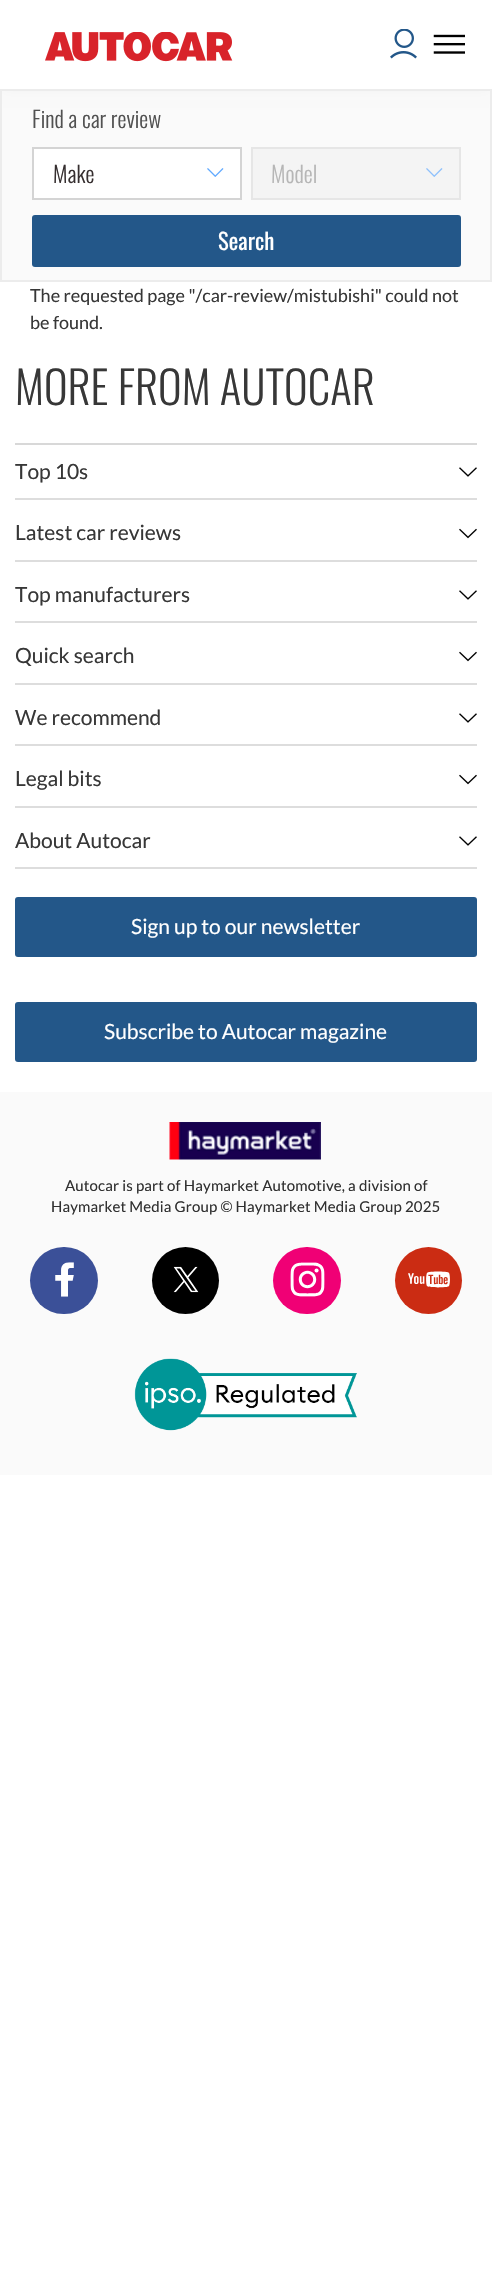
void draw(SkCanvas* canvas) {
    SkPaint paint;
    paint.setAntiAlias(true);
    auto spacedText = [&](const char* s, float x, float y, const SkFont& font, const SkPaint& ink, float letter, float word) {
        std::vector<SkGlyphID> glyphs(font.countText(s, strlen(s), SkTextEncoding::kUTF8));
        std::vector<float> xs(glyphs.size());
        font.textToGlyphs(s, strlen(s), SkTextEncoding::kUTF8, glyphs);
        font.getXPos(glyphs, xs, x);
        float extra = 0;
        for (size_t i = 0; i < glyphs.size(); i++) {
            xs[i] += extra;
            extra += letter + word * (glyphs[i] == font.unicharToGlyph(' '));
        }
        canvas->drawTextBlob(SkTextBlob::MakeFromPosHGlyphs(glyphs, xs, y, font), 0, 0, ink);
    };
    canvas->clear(0xFFFFFFFF);
    paint.setColor(0xFFFAFAFA);
    canvas->drawRect(SkRect::MakeXYWH(1, 90, 490, 191), paint);
    paint.setStyle(SkPaint::kStroke_Style);
    paint.setStrokeWidth(2);
    paint.setColor(0xFFECECEC);
    canvas->drawRect(SkRect::MakeXYWH(1, 90, 490, 191), paint);
    paint.setStyle(SkPaint::kFill_Style);
    paint.setMaskFilter(SkMaskFilter::MakeBlur(kNormal_SkBlurStyle, 7.5f));
    canvas->drawRect(SkRect::MakeXYWH(3, 2, 486, 84), paint);
    paint.setMaskFilter(nullptr);
    paint.setColor(0xFFFFFFFF);
    canvas->drawRect(SkRect::MakeXYWH(0, 0, 492, 89), paint);
    canvas->drawImageRect(SkImages::DeferredFromEncodedData(SkData::MakeFromFileName("img1.png")), SkRect::MakeXYWH(45, 32, 188, 30), SkSamplingOptions());
    canvas->drawImageRect(SkImages::DeferredFromEncodedData(SkData::MakeFromFileName("img2.png")), SkRect::MakeXYWH(390, 29, 27, 30), SkSamplingOptions());
    canvas->drawImageRect(SkImages::DeferredFromEncodedData(SkData::MakeFromFileName("img3.png")), SkRect::MakeXYWH(433, 34, 32, 20), SkSamplingOptions());
    SkFont font1(fontMgr->matchFamilyStyle("Oswald", SkFontStyle(300, SkFontStyle::kNormal_Width, SkFontStyle::kUpright_Slant)), 22.5f);
    font1.setSubpixel(true);
    paint.setColor(0xFF515151);
    canvas->drawString("Find a car review", 32, 128, font1, paint);
    paint.setColor(0xFFFFFFFF);
    canvas->drawRect(SkRect::MakeXYWH(34, 149, 206, 49), paint);
    canvas->drawImageRect(SkImages::DeferredFromEncodedData(SkData::MakeFromFileName("img4.png")), SkRect::MakeXYWH(207, 168, 17, 9), SkSamplingOptions());
    paint.setStyle(SkPaint::kStroke_Style);
    paint.setColor(0xFFD4D4D4);
    canvas->drawRect(SkRect::MakeXYWH(33, 148, 208, 51), paint);
    paint.setStyle(SkPaint::kFill_Style);
    paint.setColor(0xFF362F30);
    canvas->drawString("Make", 53, 183, font1, paint);
    paint.setColor(0xFFF4F4F4);
    canvas->drawRect(SkRect::MakeXYWH(253, 149, 206, 49), paint);
    canvas->drawImageRect(SkImages::DeferredFromEncodedData(SkData::MakeFromFileName("img5.png")), SkRect::MakeXYWH(426, 168, 17, 9), SkSamplingOptions());
    paint.setStyle(SkPaint::kStroke_Style);
    paint.setColor(0xFFE6E6E6);
    canvas->drawRect(SkRect::MakeXYWH(252, 148, 208, 51), paint);
    paint.setStyle(SkPaint::kFill_Style);
    paint.setColor(0xFFB6B6B6);
    canvas->drawString("Model", 271, 183, font1, paint);
    paint.setColor(0xFF235789);
    canvas->drawRoundRect(SkRect::MakeXYWH(32, 215, 429, 52), 3, 3, paint);
    SkFont font2(fontMgr->matchFamilyStyle("Oswald", SkFontStyle::Normal()), 22.5f);
    font2.setSubpixel(true);
    paint.setColor(0xFFFFFFFF);
    canvas->drawString("Search", 218, 250, font2, paint);
    SkFont font3(fontMgr->matchFamilyStyle("Lato", SkFontStyle::Normal()), 18);
    font3.setSubpixel(true);
    paint.setColor(0xFF373737);
    canvas->drawString("The requested page \"/car-review/mistubishi\" could not", 30, 302, font3, paint);
    canvas->drawString("be found.", 30, 329, font3, paint);
    SkFont font4(fontMgr->matchFamilyStyle("Oswald", SkFontStyle(300, SkFontStyle::kNormal_Width, SkFontStyle::kUpright_Slant)), 45);
    font4.setSubpixel(true);
    canvas->drawString("MORE FROM AUTOCAR", 15, 405, font4, paint);
    paint.setColor(0xFFD8D8D8);
    canvas->drawRect(SkRect::MakeXYWH(15, 443, 462, 2), paint);
    SkFont font5(fontMgr->matchFamilyStyle("Lato", SkFontStyle::Normal()), 21);
    font5.setSubpixel(true);
    paint.setColor(0xFF373737);
    canvas->drawString("Top 10s", 15, 479, font5, paint);
    canvas->drawImageRect(SkImages::DeferredFromEncodedData(SkData::MakeFromFileName("img6.png")), SkRect::MakeXYWH(459, 467, 18, 10), SkSamplingOptions());
    paint.setColor(0xFFDDDDDD);
    canvas->drawRect(SkRect::MakeXYWH(15, 498, 462, 2), paint);
    paint.setColor(0xFF373737);
    canvas->drawString("Latest car reviews", 15, 540, font5, paint);
    canvas->drawImageRect(SkImages::DeferredFromEncodedData(SkData::MakeFromFileName("img7.png")), SkRect::MakeXYWH(459, 528, 18, 11), SkSamplingOptions());
    paint.setColor(0xFFDDDDDD);
    canvas->drawRect(SkRect::MakeXYWH(15, 560, 462, 2), paint);
    paint.setColor(0xFF373737);
    canvas->drawString("Top manufacturers", 15, 602, font5, paint);
    canvas->drawImageRect(SkImages::DeferredFromEncodedData(SkData::MakeFromFileName("img6.png")), SkRect::MakeXYWH(459, 590, 18, 10), SkSamplingOptions());
    paint.setColor(0xFFDDDDDD);
    canvas->drawRect(SkRect::MakeXYWH(15, 621, 462, 2), paint);
    paint.setColor(0xFF373737);
    canvas->drawString("Quick search", 15, 663, font5, paint);
    canvas->drawImageRect(SkImages::DeferredFromEncodedData(SkData::MakeFromFileName("img7.png")), SkRect::MakeXYWH(459, 651, 18, 11), SkSamplingOptions());
    paint.setColor(0xFFDDDDDD);
    canvas->drawRect(SkRect::MakeXYWH(15, 683, 462, 2), paint);
    paint.setColor(0xFF373737);
    canvas->drawString("We recommend", 15, 725, font5, paint);
    canvas->drawImageRect(SkImages::DeferredFromEncodedData(SkData::MakeFromFileName("img6.png")), SkRect::MakeXYWH(459, 713, 18, 10), SkSamplingOptions());
    paint.setColor(0xFFDDDDDD);
    canvas->drawRect(SkRect::MakeXYWH(15, 744, 462, 2), paint);
    paint.setColor(0xFF373737);
    canvas->drawString("Legal bits", 15, 786, font5, paint);
    canvas->drawImageRect(SkImages::DeferredFromEncodedData(SkData::MakeFromFileName("img7.png")), SkRect::MakeXYWH(459, 774, 18, 11), SkSamplingOptions());
    paint.setColor(0xFFDDDDDD);
    canvas->drawRect(SkRect::MakeXYWH(15, 806, 462, 2), paint);
    paint.setColor(0xFF373737);
    canvas->drawString("About Autocar", 15, 848, font5, paint);
    canvas->drawImageRect(SkImages::DeferredFromEncodedData(SkData::MakeFromFileName("img6.png")), SkRect::MakeXYWH(459, 836, 18, 10), SkSamplingOptions());
    paint.setColor(0xFFDDDDDD);
    canvas->drawRect(SkRect::MakeXYWH(15, 867, 462, 2), paint);
    paint.setColor(0xFF235789);
    canvas->drawRoundRect(SkRect::MakeXYWH(15, 897, 462, 60), 3, 3, paint);
    paint.setColor(0xFFFFFFFF);
    canvas->drawString("Sign up to our newsletter", 131, 934, font5, paint);
    paint.setColor(0xFF235789);
    canvas->drawRoundRect(SkRect::MakeXYWH(15, 1002, 462, 60), 3, 3, paint);
    paint.setColor(0xFFFFFFFF);
    canvas->drawString("Subscribe to Autocar magazine", 104, 1039, font5, paint);
    paint.setColor(0xFFFAFAFA);
    canvas->drawRect(SkRect::MakeXYWH(0, 1092, 492, 383), paint);
    canvas->drawImageRect(SkImages::DeferredFromEncodedData(SkData::MakeFromFileName("img8.png")), SkRect::MakeXYWH(169, 1122, 152, 38), SkSamplingOptions());
    SkFont font6(fontMgr->matchFamilyStyle("Lato", SkFontStyle::Normal()), 15);
    font6.setSubpixel(true);
    paint.setColor(0xFF303030);
    spacedText("Autocar is part of Haymarket Automotive, a division of", 65, 1191, font6, paint, 0.15f, 0);
    spacedText("Haymarket Media Group © Haymarket Media Group 2025", 51, 1212, font6, paint, 0.15f, 0);
    paint.setColor(0xFF3B5098);
    canvas->drawRoundRect(SkRect::MakeXYWH(30, 1247, 68, 67), 33.5f, 33.5f, paint);
    canvas->drawImageRect(SkImages::DeferredFromEncodedData(SkData::MakeFromFileName("img9.png")), SkRect::MakeXYWH(55, 1262, 19, 35), SkSamplingOptions());
    paint.setColor(0xFF000000);
    canvas->drawCircle(185.5f, 1280.5f, 33.5f, paint);
    canvas->drawImageRect(SkImages::DeferredFromEncodedData(SkData::MakeFromFileName("img10.png")), SkRect::MakeXYWH(173, 1266, 26, 27), SkSamplingOptions());
    paint.setColor(0xFFF00075);
    canvas->drawRoundRect(SkRect::MakeXYWH(273, 1247, 68, 67), 33.5f, 33.5f, paint);
    canvas->drawImageRect(SkImages::DeferredFromEncodedData(SkData::MakeFromFileName("img11.png")), SkRect::MakeXYWH(290, 1262, 35, 35), SkSamplingOptions());
    paint.setColor(0xFFCB2C13);
    canvas->drawCircle(428.5f, 1280.5f, 33.5f, paint);
    canvas->drawImageRect(SkImages::DeferredFromEncodedData(SkData::MakeFromFileName("img12.png")), SkRect::MakeXYWH(408, 1271, 42, 17), SkSamplingOptions());
    canvas->drawImageRect(SkImages::DeferredFromEncodedData(SkData::MakeFromFileName("img13.png")), SkRect::MakeXYWH(134, 1358, 223, 73), SkSamplingOptions());
}
